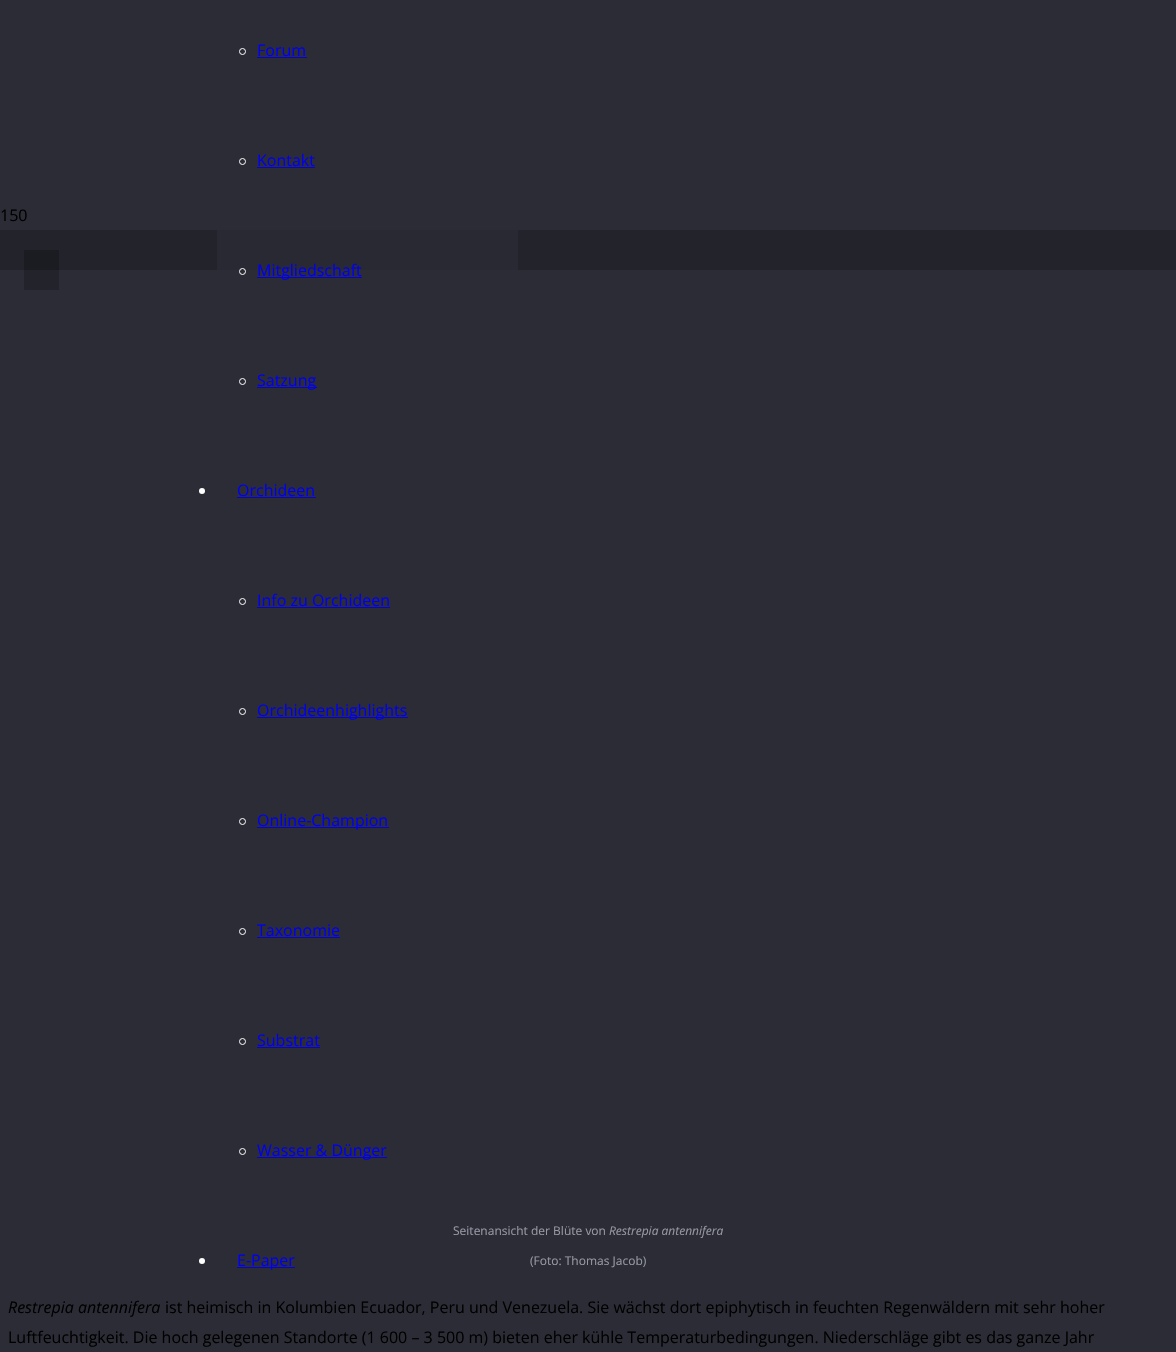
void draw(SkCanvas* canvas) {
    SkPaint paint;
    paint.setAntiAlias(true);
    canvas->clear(0xFF2B2C36);
    paint.setColor(0xFF22232B);
    canvas->drawRect(SkRect::MakeXYWH(24, 270, 35, 20), paint);
    SkFont font1(fontMgr->matchFamilyStyle("Open Sans", SkFontStyle::Normal()), 16);
    font1.setSubpixel(true);
    paint.setColor(0xFF000000);
    canvas->drawString("150", 0, 221, font1, paint);
    paint.setStyle(SkPaint::kStroke_Style);
    paint.setStrokeWidth(1);
    paint.setColor(0xFFFFFFFF);
    canvas->drawCircle(242.5f, 51.5f, 3, paint);
    paint.setStyle(SkPaint::kFill_Style);
    paint.setColor(0xFF0000EE);
    canvas->drawString("Forum", 257, 56, font1, paint);
    canvas->drawRect(SkRect::MakeXYWH(257, 57, 50, 1), paint);
    paint.setStyle(SkPaint::kStroke_Style);
    paint.setColor(0xFFFFFFFF);
    canvas->drawCircle(242.5f, 161.5f, 3, paint);
    paint.setStyle(SkPaint::kFill_Style);
    paint.setColor(0xFF0000EE);
    canvas->drawString("Kontakt", 257, 166, font1, paint);
    canvas->drawRect(SkRect::MakeXYWH(257, 167, 58, 1), paint);
    paint.setColor(0xFF22232B);
    canvas->drawRect(SkRect::MakeXYWH(0, 230, 1176, 40), paint);
    paint.setColor(0xFF282932);
    canvas->drawRect(SkRect::MakeXYWH(217, 230, 301, 40), paint);
    paint.setStyle(SkPaint::kStroke_Style);
    paint.setColor(0xFFFFFFFF);
    canvas->drawCircle(242.5f, 271.5f, 3, paint);
    paint.setStyle(SkPaint::kFill_Style);
    paint.setColor(0xFF0000EE);
    canvas->drawRect(SkRect::MakeXYWH(257, 277, 105, 1), paint);
    canvas->drawString("Mitgliedschaft", 257, 276, font1, paint);
    paint.setStyle(SkPaint::kStroke_Style);
    paint.setColor(0xFFFFFFFF);
    canvas->drawCircle(242.5f, 381.5f, 3, paint);
    paint.setStyle(SkPaint::kFill_Style);
    paint.setColor(0xFF0000EE);
    canvas->drawRect(SkRect::MakeXYWH(257, 387, 60, 1), paint);
    canvas->drawString("Satzung", 257, 386, font1, paint);
    paint.setColor(0xFFFFFFFF);
    canvas->drawCircle(202, 491, 3, paint);
    paint.setColor(0xFF0000EE);
    canvas->drawString("Orchideen", 237, 496, font1, paint);
    canvas->drawRect(SkRect::MakeXYWH(237, 497, 79, 1), paint);
    paint.setStyle(SkPaint::kStroke_Style);
    paint.setColor(0xFFFFFFFF);
    canvas->drawCircle(242.5f, 601.5f, 3, paint);
    paint.setStyle(SkPaint::kFill_Style);
    paint.setColor(0xFF0000EE);
    canvas->drawString("Info zu Orchideen", 257, 606, font1, paint);
    canvas->drawRect(SkRect::MakeXYWH(257, 607, 133, 1), paint);
    paint.setStyle(SkPaint::kStroke_Style);
    paint.setColor(0xFFFFFFFF);
    canvas->drawCircle(242.5f, 711.5f, 3, paint);
    paint.setStyle(SkPaint::kFill_Style);
    paint.setColor(0xFF0000EE);
    canvas->drawRect(SkRect::MakeXYWH(257, 717, 151, 1), paint);
    canvas->drawString("Orchideenhighlights", 257, 716, font1, paint);
    paint.setStyle(SkPaint::kStroke_Style);
    paint.setColor(0xFFFFFFFF);
    canvas->drawCircle(242.5f, 821.5f, 3, paint);
    paint.setStyle(SkPaint::kFill_Style);
    paint.setColor(0xFF0000EE);
    canvas->drawRect(SkRect::MakeXYWH(257, 827, 132, 1), paint);
    canvas->drawString("Online-Champion", 257, 826, font1, paint);
    paint.setStyle(SkPaint::kStroke_Style);
    paint.setColor(0xFFFFFFFF);
    canvas->drawCircle(242.5f, 931.5f, 3, paint);
    paint.setStyle(SkPaint::kFill_Style);
    paint.setColor(0xFF0000EE);
    canvas->drawString("Taxonomie", 257, 936, font1, paint);
    canvas->drawRect(SkRect::MakeXYWH(257, 937, 83, 1), paint);
    paint.setStyle(SkPaint::kStroke_Style);
    paint.setColor(0xFFFFFFFF);
    canvas->drawCircle(242.5f, 1041.5f, 3, paint);
    paint.setStyle(SkPaint::kFill_Style);
    paint.setColor(0xFF0000EE);
    canvas->drawString("Substrat", 257, 1046, font1, paint);
    canvas->drawRect(SkRect::MakeXYWH(257, 1047, 63, 1), paint);
    paint.setStyle(SkPaint::kStroke_Style);
    paint.setColor(0xFFFFFFFF);
    canvas->drawCircle(242.5f, 1151.5f, 3, paint);
    paint.setStyle(SkPaint::kFill_Style);
    paint.setColor(0xFF0000EE);
    canvas->drawRect(SkRect::MakeXYWH(257, 1157, 130, 1), paint);
    canvas->drawString("Wasser & Dünger", 257, 1156, font1, paint);
    paint.setColor(0xFFFFFFFF);
    canvas->drawCircle(202, 1261, 3, paint);
    paint.setColor(0xFF0000EE);
    canvas->drawRect(SkRect::MakeXYWH(237, 1267, 58, 1), paint);
    canvas->drawString("E-Paper", 237, 1266, font1, paint);
    paint.setColor(0xFF1B1C22);
    canvas->drawRect(SkRect::MakeXYWH(24, 250, 35, 20), paint);
    SkFont font2(fontMgr->matchFamilyStyle("Open Sans", SkFontStyle::Normal()), 12);
    font2.setSubpixel(true);
    paint.setColor(0xFF9698A3);
    canvas->drawString("Seitenansicht der Blüte von", 453, 1235, font2, paint);
    SkFont font3(fontMgr->matchFamilyStyle("Open Sans", SkFontStyle::Italic()), 12);
    font3.setSubpixel(true);
    canvas->drawString("Restrepia antennifera", 609, 1235, font3, paint);
    canvas->drawString("(Foto: Thomas Jacob)", 530, 1265, font2, paint);
    SkFont font4(fontMgr->matchFamilyStyle("Open Sans", SkFontStyle::Italic()), 16);
    font4.setSubpixel(true);
    paint.setColor(0xFF000000);
    canvas->drawString("Restrepia antennifera", 8, 1313, font4, paint);
    canvas->drawString("ist heimisch in Kolumbien Ecuador, Peru und Venezuela. Sie wächst dort epiphytisch in feuchten Regenwäldern mit sehr hoher", 165, 1313, font1, paint);
    canvas->drawString("Luftfeuchtigkeit. Die hoch gelegenen Standorte (1 600 – 3 500 m) bieten eher kühle Temperaturbedingungen. Niederschläge gibt es das ganze Jahr", 8, 1343, font1, paint);
}
